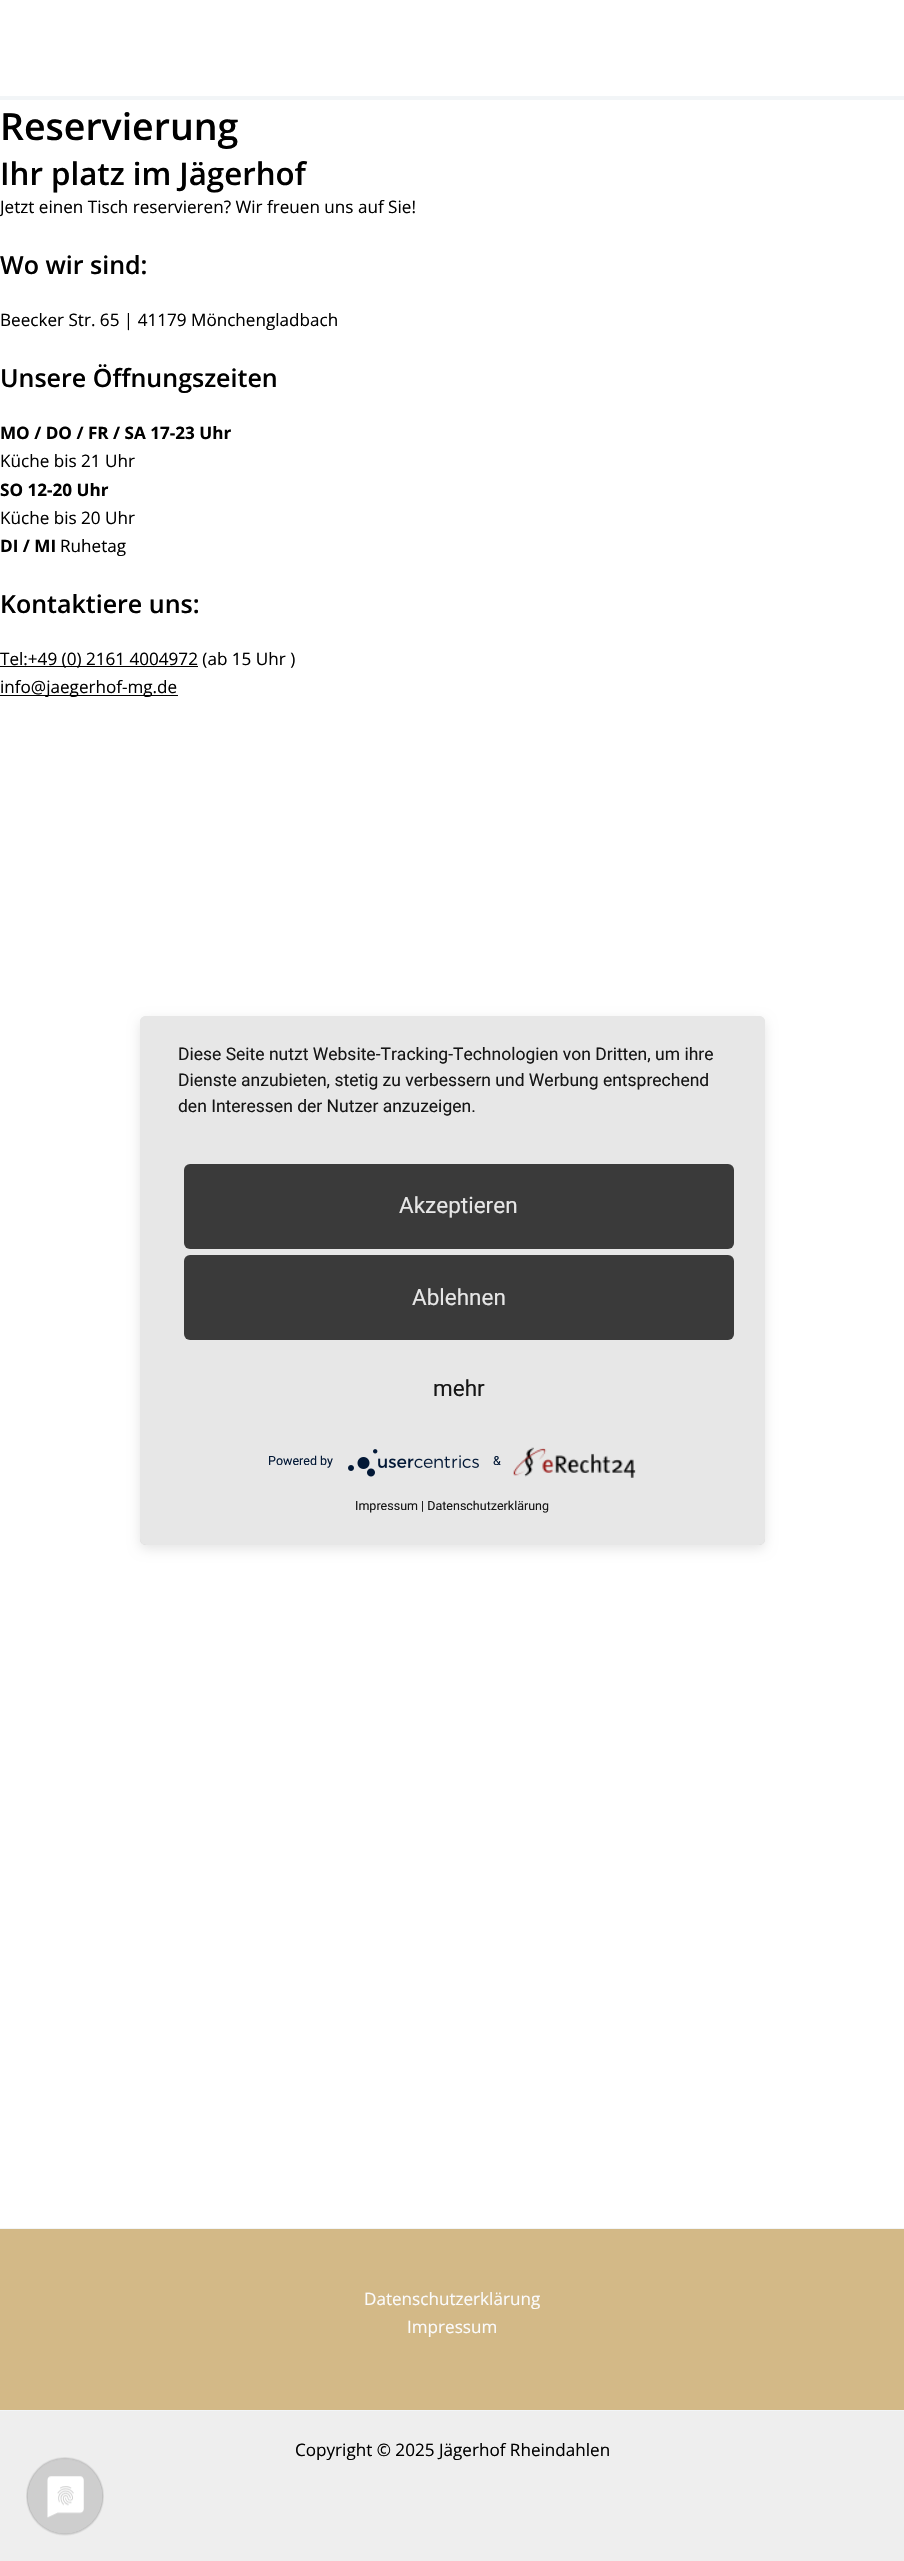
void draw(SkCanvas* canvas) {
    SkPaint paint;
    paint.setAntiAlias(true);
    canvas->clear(0xFFFFFFFF);
    paint.setColor(0xFFF2F5F7);
    canvas->drawRect(SkRect::MakeXYWH(0, 96, 904, 4), paint);
    SkFont font1(fontMgr->matchFamilyStyle("Open Sans", SkFontStyle(600, SkFontStyle::kNormal_Width, SkFontStyle::kUpright_Slant)), 37.5f);
    font1.setSubpixel(true);
    paint.setColor(0xFF000000);
    canvas->drawString("Reservierung", 0, 140, font1, paint);
    SkFont font2(fontMgr->matchFamilyStyle("Open Sans", SkFontStyle(600, SkFontStyle::kNormal_Width, SkFontStyle::kUpright_Slant)), 31.25f);
    font2.setSubpixel(true);
    canvas->drawString("Ihr platz im Jägerhof", 0, 185, font2, paint);
    SkFont font3(fontMgr->matchFamilyStyle("Open Sans", SkFontStyle::Normal()), 17.1f);
    font3.setSubpixel(true);
    canvas->drawString("Jetzt einen Tisch reservieren? Wir freuen uns auf Sie!", 0, 213, font3, paint);
    SkFont font4(fontMgr->matchFamilyStyle("Open Sans", SkFontStyle(600, SkFontStyle::kNormal_Width, SkFontStyle::kUpright_Slant)), 25);
    font4.setSubpixel(true);
    canvas->drawString("Wo wir sind:", 0, 274, font4, paint);
    canvas->drawString("Beecker Str. 65 | 41179 Mönchengladbach", 0, 326, font3, paint);
    canvas->drawString("Unsere Öffnungszeiten", 0, 387, font4, paint);
    SkFont font5(fontMgr->matchFamilyStyle("Open Sans", SkFontStyle::Bold()), 17.1f);
    font5.setSubpixel(true);
    canvas->drawString("MO / DO / FR / SA 17-23 Uhr", 0, 439, font5, paint);
    canvas->drawString("Küche bis 21 Uhr", 0, 467, font3, paint);
    canvas->drawString("SO 12-20 Uhr", 0, 496, font5, paint);
    canvas->drawString("Küche bis 20 Uhr", 0, 524, font3, paint);
    canvas->drawString("DI / MI", 0, 552, font5, paint);
    canvas->drawString("Ruhetag", 60, 552, font3, paint);
    canvas->drawString("Kontaktiere uns:", 0, 613, font4, paint);
    canvas->drawRect(SkRect::MakeXYWH(0, 666, 198, 1), paint);
    canvas->drawString("Tel:+49 (0) 2161 4004972 (ab 15 Uhr )", 0, 665, font3, paint);
    canvas->drawRect(SkRect::MakeXYWH(0, 695, 178, 1), paint);
    canvas->drawString("info@jaegerhof-mg.de", 0, 693, font3, paint);
    paint.setColor(0xFFD3B987);
    canvas->drawRect(SkRect::MakeXYWH(0, 2229, 904, 181), paint);
    paint.setColor(0xFFF2F5F7);
    canvas->drawRect(SkRect::MakeXYWH(0, 2228, 904, 1), paint);
    paint.setColor(0xFFFBFBFB);
    canvas->drawString("Datenschutzerklärung", 364, 2305, font3, paint);
    canvas->drawString("Impressum", 407, 2333, font3, paint);
    paint.setColor(0xFFEEEEEE);
    canvas->drawRect(SkRect::MakeXYWH(0, 2411, 904, 150), paint);
    paint.setColor(0xFFF2F5F7);
    canvas->drawRect(SkRect::MakeXYWH(0, 2410, 904, 1), paint);
    paint.setColor(0xFF000000);
    canvas->drawString("Copyright © 2025 Jägerhof Rheindahlen", 295, 2456, font3, paint);
    paint.setColor(0x1A000000);
    paint.setMaskFilter(SkMaskFilter::MakeBlur(kNormal_SkBlurStyle, 6));
    canvas->drawRoundRect(SkRect::MakeXYWH(140, 1020, 625, 529), 6, 6, paint);
    paint.setMaskFilter(nullptr);
    canvas->save();
    canvas->clipPath(SkPathBuilder().moveTo(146, 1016).lineTo(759, 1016).cubicTo(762.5f, 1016, 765, 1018.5f, 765, 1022).lineTo(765, 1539).cubicTo(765, 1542.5f, 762.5f, 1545, 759, 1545).lineTo(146, 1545).cubicTo(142.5f, 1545, 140, 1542.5f, 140, 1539).lineTo(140, 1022).cubicTo(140, 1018.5f, 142.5f, 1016, 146, 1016).close().detach(), true);
    paint.setColor(0x4D000000);
    paint.setMaskFilter(SkMaskFilter::MakeBlur(kNormal_SkBlurStyle, 22.5f));
    canvas->drawRect(SkRect::MakeXYWH(140, 1024, 625, 529), paint);
    paint.setMaskFilter(nullptr);
    canvas->restore();
    paint.setColor(0xFFE7E7E7);
    canvas->drawRoundRect(SkRect::MakeXYWH(140, 1016, 625, 529), 6, 6, paint);
    SkFont font6(fontMgr->matchFamilyStyle("Roboto", SkFontStyle::Normal()), 17.5f);
    font6.setSubpixel(true);
    paint.setColor(0xFF161616);
    canvas->drawString("Diese Seite nutzt Website-Tracking-Technologien von Dritten, um ihre", 178, 1060, font6, paint);
    canvas->drawString("Dienste anzubieten, stetig zu verbessern und Werbung entsprechend", 178, 1086, font6, paint);
    canvas->drawString("den Interessen der Nutzer anzuzeigen.", 178, 1112, font6, paint);
    paint.setColor(0xFF3A3A3A);
    canvas->drawRoundRect(SkRect::MakeXYWH(184, 1164, 550, 85), 6, 6, paint);
    SkFont font7(fontMgr->matchFamilyStyle("Roboto", SkFontStyle::Normal()), 22.5f);
    font7.setSubpixel(true);
    paint.setColor(0xFFE6E6E6);
    canvas->drawString("Akzeptieren", 399, 1213, font7, paint);
    paint.setColor(0xFF3A3A3A);
    canvas->drawRoundRect(SkRect::MakeXYWH(184, 1255, 550, 85), 6, 6, paint);
    paint.setColor(0xFFE6E6E6);
    canvas->drawString("Ablehnen", 412, 1305, font7, paint);
    paint.setColor(0xFF161616);
    canvas->drawString("mehr", 433, 1396, font7, paint);
    SkFont font8(fontMgr->matchFamilyStyle("Roboto", SkFontStyle::Normal()), 12.5f);
    font8.setSubpixel(true);
    paint.setColor(0xFF021836);
    canvas->drawString("Powered by", 268, 1465, font8, paint);
    canvas->drawImageRect(SkImages::DeferredFromEncodedData(SkData::MakeFromFileName("img1.png")), SkRect::MakeXYWH(348, 1449, 131, 28), SkSamplingOptions());
    canvas->drawString("&", 493, 1465, font8, paint);
    canvas->drawImageRect(SkImages::DeferredFromEncodedData(SkData::MakeFromFileName("img2.png")), SkRect::MakeXYWH(513, 1447, 123, 31), SkSamplingOptions());
    paint.setColor(0xFF161616);
    canvas->drawString("Impressum | Datenschutzerklärung", 355, 1510, font8, paint);
    canvas->drawImageRect(SkImages::DeferredFromEncodedData(SkData::MakeFromFileName("img3.png")), SkRect::MakeXYWH(26, 2457, 78, 79), SkSamplingOptions());
}
